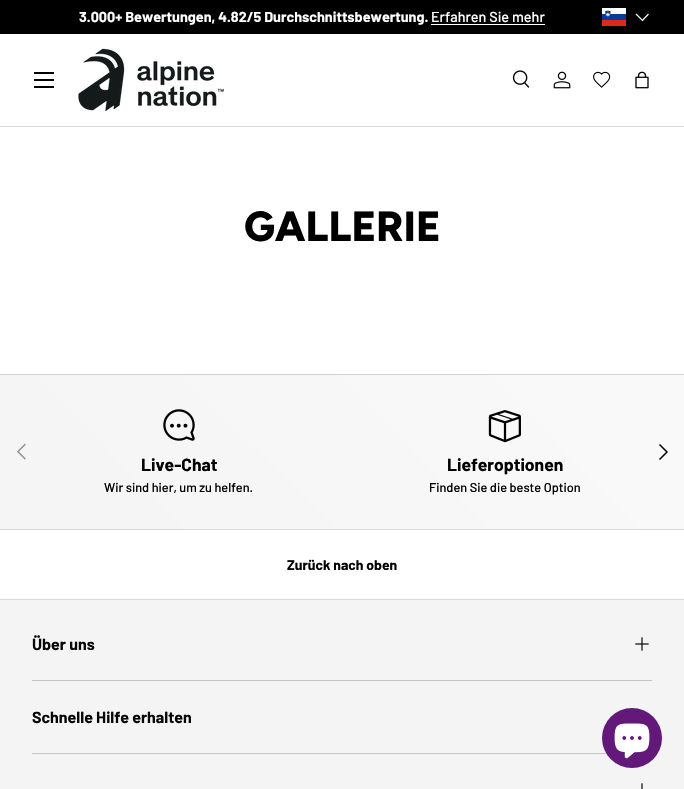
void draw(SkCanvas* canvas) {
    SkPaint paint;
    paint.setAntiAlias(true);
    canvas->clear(0xFFFFFFFF);
    paint.setColor(0xFF000000);
    canvas->drawRect(SkRect::MakeXYWH(0, 0, 684, 34), paint);
    SkFont font1(fontMgr->matchFamilyStyle("Barlow", SkFontStyle::Bold()), 14.4f);
    font1.setSubpixel(true);
    paint.setColor(0xFFFFFFFF);
    canvas->drawString("3.000+ Bewertungen, 4.82/5 Durchschnittsbewertung.", 79, 22, font1, paint);
    SkFont font2(fontMgr->matchFamilyStyle("Barlow", SkFontStyle(500, SkFontStyle::kNormal_Width, SkFontStyle::kUpright_Slant)), 14.4f);
    font2.setSubpixel(true);
    canvas->drawString("Erfahren Sie mehr", 431, 22, font2, paint);
    canvas->drawRect(SkRect::MakeXYWH(431, 24, 114, 1), paint);
    canvas->drawImageRect(SkImages::DeferredFromEncodedData(SkData::MakeFromFileName("img1.png")), SkRect::MakeXYWH(602, 8, 24, 18), SkSamplingOptions());
    paint.setStyle(SkPaint::kStroke_Style);
    paint.setStrokeWidth(1.2f);
    canvas->drawPath(SkPathBuilder().moveTo(648.5f, 14).lineTo(642.5f, 20.5f).lineTo(636, 14).detach(), paint);
    paint.setStyle(SkPaint::kFill_Style);
    paint.setColor(0xFFD9D9D9);
    canvas->drawRect(SkRect::MakeXYWH(0, 126, 684, 1), paint);
    paint.setColor(0xFF000000);
    canvas->drawRect(SkRect::MakeXYWH(34, 72, 20, 2), paint);
    canvas->drawRect(SkRect::MakeXYWH(34, 86, 20, 2), paint);
    canvas->drawRect(SkRect::MakeXYWH(34, 79, 20, 2), paint);
    canvas->drawImageRect(SkImages::DeferredFromEncodedData(SkData::MakeFromFileName("img2.png")), SkRect::MakeXYWH(78, 48, 146, 64), SkSamplingOptions());
    canvas->drawImageRect(SkImages::DeferredFromEncodedData(SkData::MakeFromFileName("img3.png")), SkRect::MakeXYWH(512, 70, 18, 18), SkSamplingOptions());
    canvas->drawImageRect(SkImages::DeferredFromEncodedData(SkData::MakeFromFileName("img4.png")), SkRect::MakeXYWH(553, 71, 18, 18), SkSamplingOptions());
    canvas->drawImageRect(SkImages::DeferredFromEncodedData(SkData::MakeFromFileName("img5.png")), SkRect::MakeXYWH(593, 71, 18, 17), SkSamplingOptions());
    canvas->drawImageRect(SkImages::DeferredFromEncodedData(SkData::MakeFromFileName("img6.png")), SkRect::MakeXYWH(635, 71, 14, 18), SkSamplingOptions());
    SkFont font3(fontMgr->matchFamilyStyle("Figtree", SkFontStyle(800, SkFontStyle::kNormal_Width, SkFontStyle::kUpright_Slant)), 42);
    font3.setSubpixel(true);
    canvas->drawString("GALLERIE", 244, 241, font3, paint);
    {
        const SkColor colors[] = {0xFFD0D0D0, 0xFFD4D4D4};
        const float stops[] = {0.13f, 0.86f};
        const SkPoint ends[] = {{127, 506}, {557, 90}};
        paint.setShader(SkGradientShader::MakeLinear(ends, colors, stops, 2, SkTileMode::kClamp));
        paint.setAlpha(255);
    }
    canvas->drawRect(SkRect::MakeXYWH(0, 374, 684, 1), paint);
    {
        const SkColor colors[] = {0xFFF5F5F5, 0xFFF9F9F9};
        const float stops[] = {0.13f, 0.86f};
        const SkPoint ends[] = {{127, 660}, {557, 244}};
        paint.setShader(SkGradientShader::MakeLinear(ends, colors, stops, 2, SkTileMode::kClamp));
        paint.setAlpha(255);
    }
    canvas->drawRect(SkRect::MakeXYWH(0, 375, 684, 154), paint);
    canvas->drawImageRect(SkImages::DeferredFromEncodedData(SkData::MakeFromFileName("img7.png")), SkRect::MakeXYWH(17, 443, 9, 17), SkSamplingOptions());
    paint.setStyle(SkPaint::kStroke_Style);
    paint.setStrokeWidth(1.5f);
    paint.setShader(nullptr);
    paint.setColor(0xFF000000);
    canvas->drawPath(SkPathBuilder().moveTo(659.5f, 444.5f).lineTo(667, 452).lineTo(659.5f, 459.5f).detach(), paint);
    canvas->drawImageRect(SkImages::DeferredFromEncodedData(SkData::MakeFromFileName("img8.png")), SkRect::MakeXYWH(163, 409, 32, 32), SkSamplingOptions());
    SkFont font4(fontMgr->matchFamilyStyle("Barlow", SkFontStyle::Bold()), 17.5f);
    font4.setSubpixel(true);
    paint.setStyle(SkPaint::kFill_Style);
    canvas->drawString("Live-Chat", 141, 471, font4, paint);
    SkFont font5(fontMgr->matchFamilyStyle("Barlow", SkFontStyle(500, SkFontStyle::kNormal_Width, SkFontStyle::kUpright_Slant)), 12.75f);
    font5.setSubpixel(true);
    canvas->drawString("Wir sind hier, um zu helfen.", 104, 492, font5, paint);
    canvas->drawImageRect(SkImages::DeferredFromEncodedData(SkData::MakeFromFileName("img9.png")), SkRect::MakeXYWH(488, 410, 33, 33), SkSamplingOptions());
    canvas->drawString("Lieferoptionen", 447, 471, font4, paint);
    canvas->drawString("Finden Sie die beste Option", 429, 492, font5, paint);
    paint.setColor(0xFFD9D9D9);
    canvas->drawRect(SkRect::MakeXYWH(0, 529, 684, 1), paint);
    canvas->drawRect(SkRect::MakeXYWH(0, 599, 684, 1), paint);
    SkFont font6(fontMgr->matchFamilyStyle("Barlow", SkFontStyle::Bold()), 14);
    font6.setSubpixel(true);
    paint.setColor(0xFF000000);
    canvas->drawString("Zurück nach oben", 287, 570, font6, paint);
    paint.setColor(0xFFF4F4F4);
    canvas->drawRect(SkRect::MakeXYWH(0, 600, 684, 189), paint);
    paint.setColor(0xFFC5C5C5);
    canvas->drawRect(SkRect::MakeXYWH(32, 680, 620, 1), paint);
    SkFont font7(fontMgr->matchFamilyStyle("Barlow", SkFontStyle::Bold()), 16);
    font7.setSubpixel(true);
    paint.setColor(0xFF070707);
    canvas->drawString("Über uns", 32, 650, font7, paint);
    canvas->drawImageRect(SkImages::DeferredFromEncodedData(SkData::MakeFromFileName("img10.png")), SkRect::MakeXYWH(635, 637, 14, 14), SkSamplingOptions());
    paint.setColor(0xFFC5C5C5);
    canvas->drawRect(SkRect::MakeXYWH(32, 753, 575, 1), paint);
    canvas->drawImageRect(SkImages::DeferredFromEncodedData(SkData::MakeFromFileName("img11.png")), SkRect::MakeXYWH(642, 710, 1, 1), SkSamplingOptions());
    paint.setColor(0xFF070707);
    canvas->drawString("Schnelle Hilfe erhalten", 32, 723, font7, paint);
    canvas->drawImageRect(SkImages::DeferredFromEncodedData(SkData::MakeFromFileName("img12.png")), SkRect::MakeXYWH(641, 783, 2, 6), SkSamplingOptions());
    paint.setColor(0xFF621979);
    canvas->drawCircle(632, 738, 30, paint);
    canvas->drawImageRect(SkImages::DeferredFromEncodedData(SkData::MakeFromFileName("img13.png")), SkRect::MakeXYWH(614, 723, 36, 36), SkSamplingOptions());
}
